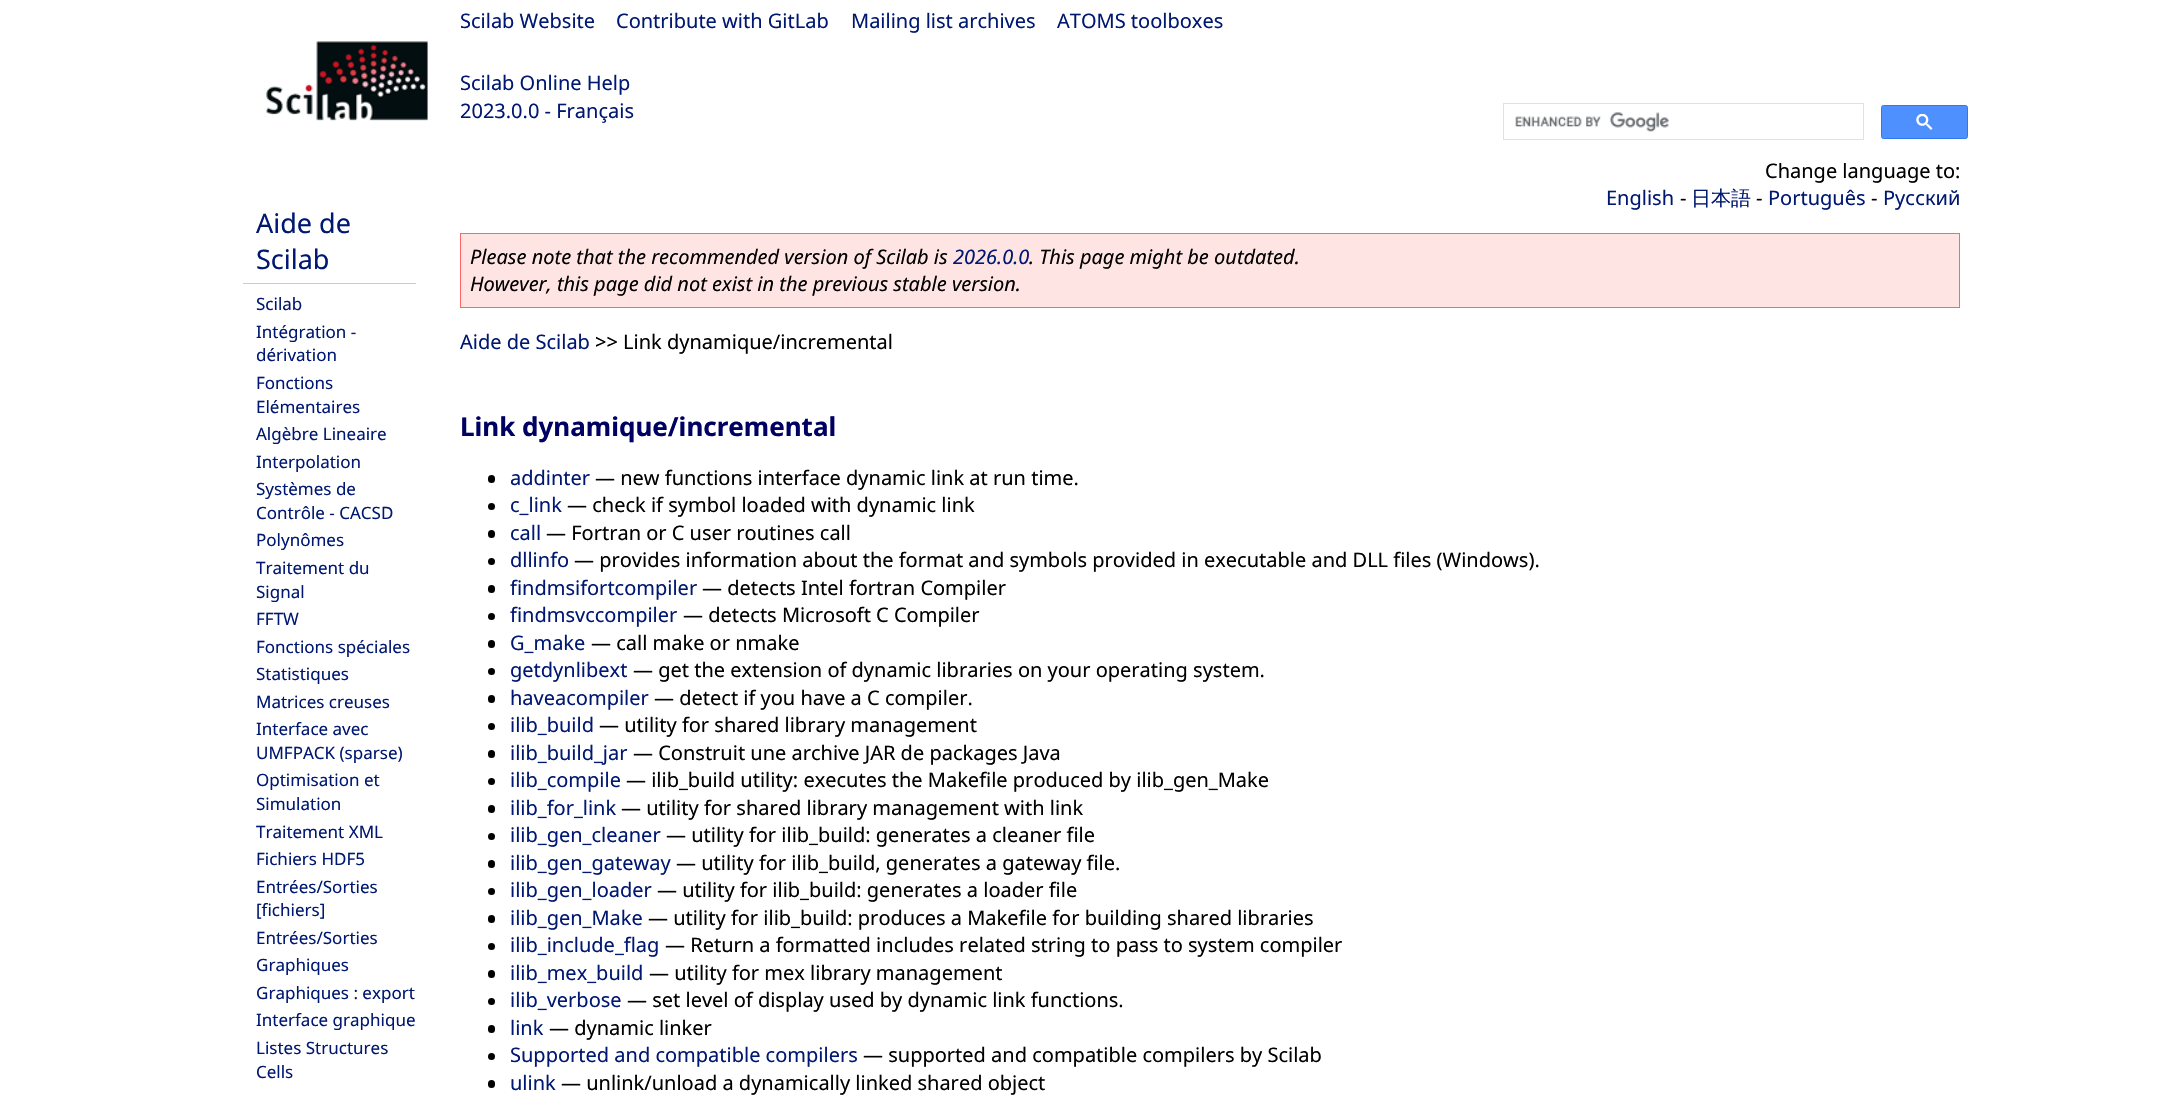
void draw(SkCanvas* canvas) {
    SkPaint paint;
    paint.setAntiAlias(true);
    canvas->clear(0xFFFFFFFF);
    canvas->drawImageRect(SkImages::DeferredFromEncodedData(SkData::MakeFromFileName("img1.png")), SkRect::MakeXYWH(266, 41, 162, 80), SkSamplingOptions());
    SkFont font1(fontMgr->matchFamilyStyle("Noto Sans", SkFontStyle::Normal()), 20);
    font1.setSubpixel(true);
    paint.setColor(0xFF001871);
    canvas->drawString("Scilab Website", 460, 28, font1, paint);
    canvas->drawString("Contribute with GitLab", 616, 28, font1, paint);
    canvas->drawString("Mailing list archives", 851, 28, font1, paint);
    canvas->drawString("ATOMS toolboxes", 1057, 28, font1, paint);
    canvas->drawString("Scilab Online Help", 460, 90, font1, paint);
    canvas->drawString("2023.0.0 - Français", 460, 118, font1, paint);
    paint.setColor(0xFF000000);
    canvas->drawString("Change language to:", 1765, 178, font1, paint);
    paint.setColor(0xFFFFFFFF);
    canvas->drawRect(SkRect::MakeXYWH(1778, 162, 68, 1), paint);
    paint.setStyle(SkPaint::kStroke_Style);
    paint.setStrokeWidth(1);
    paint.setColor(0xFFDFE1E5);
    canvas->drawRect(SkRect::MakeXYWH(1503.5f, 103.5f, 360, 36), paint);
    canvas->drawImageRect(SkImages::DeferredFromEncodedData(SkData::MakeFromFileName("img2.png")), SkRect::MakeXYWH(1515, 112, 154, 20), SkSamplingOptions());
    paint.setStyle(SkPaint::kFill_Style);
    paint.setColor(0xFF4D90FE);
    canvas->drawRoundRect(SkRect::MakeXYWH(1881.5f, 105.5f, 86, 33), 2, 2, paint);
    paint.setStyle(SkPaint::kStroke_Style);
    paint.setColor(0xFF3079ED);
    canvas->drawRoundRect(SkRect::MakeXYWH(1881.5f, 105.5f, 86, 33), 2, 2, paint);
    canvas->drawImageRect(SkImages::DeferredFromEncodedData(SkData::MakeFromFileName("img3.png")), SkRect::MakeXYWH(1916, 114, 17, 16), SkSamplingOptions());
    paint.setStyle(SkPaint::kFill_Style);
    paint.setColor(0xFFCCCCCC);
    canvas->drawRect(SkRect::MakeXYWH(243, 283, 173, 1), paint);
    SkFont font2(fontMgr->matchFamilyStyle("Noto Sans", SkFontStyle::Normal()), 27);
    font2.setSubpixel(true);
    paint.setColor(0xFF001871);
    canvas->drawString("Aide de", 256, 233, font2, paint);
    canvas->drawString("Scilab", 256, 269, font2, paint);
    SkFont font3(fontMgr->matchFamilyStyle("Noto Sans", SkFontStyle::Normal()), 17);
    font3.setSubpixel(true);
    canvas->drawString("Scilab", 256, 310, font3, paint);
    canvas->drawString("Intégration -", 256, 338, font3, paint);
    canvas->drawString("dérivation", 256, 361, font3, paint);
    canvas->drawString("Fonctions", 256, 389, font3, paint);
    canvas->drawString("Elémentaires", 256, 413, font3, paint);
    canvas->drawString("Algèbre Lineaire", 256, 440, font3, paint);
    canvas->drawString("Interpolation", 256, 468, font3, paint);
    canvas->drawString("Systèmes de", 256, 495, font3, paint);
    canvas->drawString("Contrôle - CACSD", 256, 519, font3, paint);
    canvas->drawString("Polynômes", 256, 546, font3, paint);
    canvas->drawString("Traitement du", 256, 574, font3, paint);
    canvas->drawString("Signal", 256, 598, font3, paint);
    canvas->drawString("FFTW", 256, 625, font3, paint);
    canvas->drawString("Fonctions spéciales", 256, 653, font3, paint);
    canvas->drawString("Statistiques", 256, 680, font3, paint);
    canvas->drawString("Matrices creuses", 256, 708, font3, paint);
    canvas->drawString("Interface avec", 256, 735, font3, paint);
    canvas->drawString("UMFPACK (sparse)", 256, 759, font3, paint);
    canvas->drawString("Optimisation et", 256, 786, font3, paint);
    canvas->drawString("Simulation", 256, 810, font3, paint);
    canvas->drawString("Traitement XML", 256, 838, font3, paint);
    canvas->drawString("Fichiers HDF5", 256, 865, font3, paint);
    canvas->drawString("Entrées/Sorties", 256, 893, font3, paint);
    canvas->drawString("[fichiers]", 256, 916, font3, paint);
    canvas->drawString("Entrées/Sorties", 256, 944, font3, paint);
    canvas->drawString("Graphiques", 256, 971, font3, paint);
    canvas->drawString("Graphiques : export", 256, 999, font3, paint);
    canvas->drawString("Interface graphique", 256, 1026, font3, paint);
    canvas->drawString("Listes Structures", 256, 1054, font3, paint);
    canvas->drawString("Cells", 256, 1078, font3, paint);
    canvas->drawString("English", 1606, 205, font1, paint);
    paint.setColor(0xFF000000);
    canvas->drawString("-", 1680, 205, font1, paint);
    SkFont font4(fontMgr->matchFamilyStyle("WenQuanYi Zen Hei", SkFontStyle(500, SkFontStyle::kNormal_Width, SkFontStyle::kUpright_Slant)), 20);
    font4.setSubpixel(true);
    paint.setColor(0xFF001871);
    canvas->drawString("日本語", 1691, 205, font4, paint);
    paint.setColor(0xFF000000);
    canvas->drawString("-", 1756, 205, font1, paint);
    paint.setColor(0xFF001871);
    canvas->drawString("Português", 1768, 205, font1, paint);
    paint.setColor(0xFF000000);
    canvas->drawString("-", 1871, 205, font1, paint);
    paint.setColor(0xFF001871);
    canvas->drawString("Русский", 1883, 205, font1, paint);
    paint.setColor(0xFFFFE4E4);
    canvas->drawRect(SkRect::MakeXYWH(460.5f, 233.5f, 1499, 74), paint);
    paint.setStyle(SkPaint::kStroke_Style);
    paint.setColor(0xFFFF6666);
    canvas->drawRect(SkRect::MakeXYWH(460.5f, 233.5f, 1499, 74), paint);
    SkFont font5(fontMgr->matchFamilyStyle("Noto Sans", SkFontStyle::Italic()), 20);
    font5.setSubpixel(true);
    paint.setStyle(SkPaint::kFill_Style);
    paint.setColor(0xFF000000);
    canvas->drawString("Please note that the recommended version of Scilab is", 470, 264, font5, paint);
    paint.setColor(0xFF001871);
    canvas->drawString("2026.0.0", 953, 264, font5, paint);
    paint.setColor(0xFF000000);
    canvas->drawString(". This page might be outdated.", 1029, 264, font5, paint);
    canvas->drawString("However, this page did not exist in the previous stable version.", 470, 291, font5, paint);
    paint.setColor(0xFF001871);
    canvas->drawString("Aide de Scilab", 460, 349, font1, paint);
    paint.setColor(0xFF000000);
    canvas->drawString(">> Link dynamique/incremental", 595, 349, font1, paint);
    SkFont font6(fontMgr->matchFamilyStyle("Noto Sans", SkFontStyle::Bold()), 26);
    font6.setSubpixel(true);
    paint.setColor(0xFF000063);
    canvas->drawString("Link dynamique/incremental", 460, 436, font6, paint);
    paint.setColor(0xFF000000);
    canvas->drawRoundRect(SkRect::MakeXYWH(488, 475, 7, 8), 3.5f, 3.5f, paint);
    paint.setColor(0xFF001871);
    canvas->drawString("addinter", 510, 485, font1, paint);
    paint.setColor(0xFF000000);
    canvas->drawString("— new functions interface dynamic link at run time.", 595, 485, font1, paint);
    canvas->drawCircle(491.5f, 506.5f, 3.5f, paint);
    paint.setColor(0xFF001871);
    canvas->drawString("c_link", 510, 512, font1, paint);
    paint.setColor(0xFF000000);
    canvas->drawString("— check if symbol loaded with dynamic link", 567, 512, font1, paint);
    canvas->drawRoundRect(SkRect::MakeXYWH(488, 530, 7, 8), 3.5f, 3.5f, paint);
    paint.setColor(0xFF001871);
    canvas->drawString("call", 510, 540, font1, paint);
    paint.setColor(0xFF000000);
    canvas->drawString("— Fortran or C user routines call", 546, 540, font1, paint);
    canvas->drawCircle(491.5f, 561.5f, 3.5f, paint);
    paint.setColor(0xFF001871);
    canvas->drawString("dllinfo", 510, 567, font1, paint);
    paint.setColor(0xFF000000);
    canvas->drawString("— provides information about the format and symbols provided in executable and DLL files (Windows).", 574, 567, font1, paint);
    canvas->drawRoundRect(SkRect::MakeXYWH(488, 585, 7, 8), 3.5f, 3.5f, paint);
    paint.setColor(0xFF001871);
    canvas->drawString("findmsifortcompiler", 510, 595, font1, paint);
    paint.setColor(0xFF000000);
    canvas->drawString("— detects Intel fortran Compiler", 702, 595, font1, paint);
    canvas->drawCircle(491.5f, 616.5f, 3.5f, paint);
    paint.setColor(0xFF001871);
    canvas->drawString("findmsvccompiler", 510, 622, font1, paint);
    paint.setColor(0xFF000000);
    canvas->drawString("— detects Microsoft C Compiler", 683, 622, font1, paint);
    canvas->drawRoundRect(SkRect::MakeXYWH(488, 640, 7, 8), 3.5f, 3.5f, paint);
    paint.setColor(0xFF001871);
    canvas->drawString("G_make", 510, 650, font1, paint);
    paint.setColor(0xFF000000);
    canvas->drawString("— call make or nmake", 591, 650, font1, paint);
    canvas->drawCircle(491.5f, 671.5f, 3.5f, paint);
    paint.setColor(0xFF001871);
    canvas->drawString("getdynlibext", 510, 677, font1, paint);
    paint.setColor(0xFF000000);
    canvas->drawString("— get the extension of dynamic libraries on your operating system.", 633, 677, font1, paint);
    canvas->drawRoundRect(SkRect::MakeXYWH(488, 695, 7, 8), 3.5f, 3.5f, paint);
    paint.setColor(0xFF001871);
    canvas->drawString("haveacompiler", 510, 705, font1, paint);
    paint.setColor(0xFF000000);
    canvas->drawString("— detect if you have a C compiler.", 654, 705, font1, paint);
    canvas->drawCircle(491.5f, 726.5f, 3.5f, paint);
    paint.setColor(0xFF001871);
    canvas->drawString("ilib_build", 510, 732, font1, paint);
    paint.setColor(0xFF000000);
    canvas->drawString("— utility for shared library management", 599, 732, font1, paint);
    canvas->drawRoundRect(SkRect::MakeXYWH(488, 750, 7, 8), 3.5f, 3.5f, paint);
    paint.setColor(0xFF001871);
    canvas->drawString("ilib_build_jar", 510, 760, font1, paint);
    paint.setColor(0xFF000000);
    canvas->drawString("— Construit une archive JAR de packages Java", 633, 760, font1, paint);
    canvas->drawCircle(491.5f, 781.5f, 3.5f, paint);
    paint.setColor(0xFF001871);
    canvas->drawString("ilib_compile", 510, 787, font1, paint);
    paint.setColor(0xFF000000);
    canvas->drawString("— ilib_build utility: executes the Makefile produced by ilib_gen_Make", 626, 787, font1, paint);
    canvas->drawRoundRect(SkRect::MakeXYWH(488, 805, 7, 8), 3.5f, 3.5f, paint);
    paint.setColor(0xFF001871);
    canvas->drawString("ilib_for_link", 510, 815, font1, paint);
    paint.setColor(0xFF000000);
    canvas->drawString("— utility for shared library management with link", 621, 815, font1, paint);
    canvas->drawCircle(491.5f, 836.5f, 3.5f, paint);
    paint.setColor(0xFF001871);
    canvas->drawString("ilib_gen_cleaner", 510, 842, font1, paint);
    paint.setColor(0xFF000000);
    canvas->drawString("— utility for ilib_build: generates a cleaner file", 666, 842, font1, paint);
    canvas->drawRoundRect(SkRect::MakeXYWH(488, 860, 7, 8), 3.5f, 3.5f, paint);
    paint.setColor(0xFF001871);
    canvas->drawString("ilib_gen_gateway", 510, 870, font1, paint);
    paint.setColor(0xFF000000);
    canvas->drawString("— utility for ilib_build, generates a gateway file.", 676, 870, font1, paint);
    canvas->drawCircle(491.5f, 891.5f, 3.5f, paint);
    paint.setColor(0xFF001871);
    canvas->drawString("ilib_gen_loader", 510, 897, font1, paint);
    paint.setColor(0xFF000000);
    canvas->drawString("— utility for ilib_build: generates a loader file", 657, 897, font1, paint);
    canvas->drawRoundRect(SkRect::MakeXYWH(488, 915, 7, 8), 3.5f, 3.5f, paint);
    paint.setColor(0xFF001871);
    canvas->drawString("ilib_gen_Make", 510, 925, font1, paint);
    paint.setColor(0xFF000000);
    canvas->drawString("— utility for ilib_build: produces a Makefile for building shared libraries", 648, 925, font1, paint);
    canvas->drawCircle(491.5f, 946.5f, 3.5f, paint);
    paint.setColor(0xFF001871);
    canvas->drawString("ilib_include_flag", 510, 952, font1, paint);
    paint.setColor(0xFF000000);
    canvas->drawString("— Return a formatted includes related string to pass to system compiler", 665, 952, font1, paint);
    canvas->drawRoundRect(SkRect::MakeXYWH(488, 970, 7, 8), 3.5f, 3.5f, paint);
    paint.setColor(0xFF001871);
    canvas->drawString("ilib_mex_build", 510, 980, font1, paint);
    paint.setColor(0xFF000000);
    canvas->drawString("— utility for mex library management", 649, 980, font1, paint);
    canvas->drawCircle(491.5f, 1001.5f, 3.5f, paint);
    paint.setColor(0xFF001871);
    canvas->drawString("ilib_verbose", 510, 1007, font1, paint);
    paint.setColor(0xFF000000);
    canvas->drawString("— set level of display used by dynamic link functions.", 627, 1007, font1, paint);
    canvas->drawRoundRect(SkRect::MakeXYWH(488, 1025, 7, 8), 3.5f, 3.5f, paint);
    paint.setColor(0xFF001871);
    canvas->drawString("link", 510, 1035, font1, paint);
    paint.setColor(0xFF000000);
    canvas->drawString("— dynamic linker", 549, 1035, font1, paint);
    canvas->drawCircle(491.5f, 1056.5f, 3.5f, paint);
    paint.setColor(0xFF001871);
    canvas->drawString("Supported and compatible compilers", 510, 1062, font1, paint);
    paint.setColor(0xFF000000);
    canvas->drawString("— supported and compatible compilers by Scilab", 863, 1062, font1, paint);
    canvas->drawRoundRect(SkRect::MakeXYWH(488, 1080, 7, 8), 3.5f, 3.5f, paint);
    paint.setColor(0xFF001871);
    canvas->drawString("ulink", 510, 1090, font1, paint);
    paint.setColor(0xFF000000);
    canvas->drawString("— unlink/unload a dynamically linked shared object", 561, 1090, font1, paint);
}
